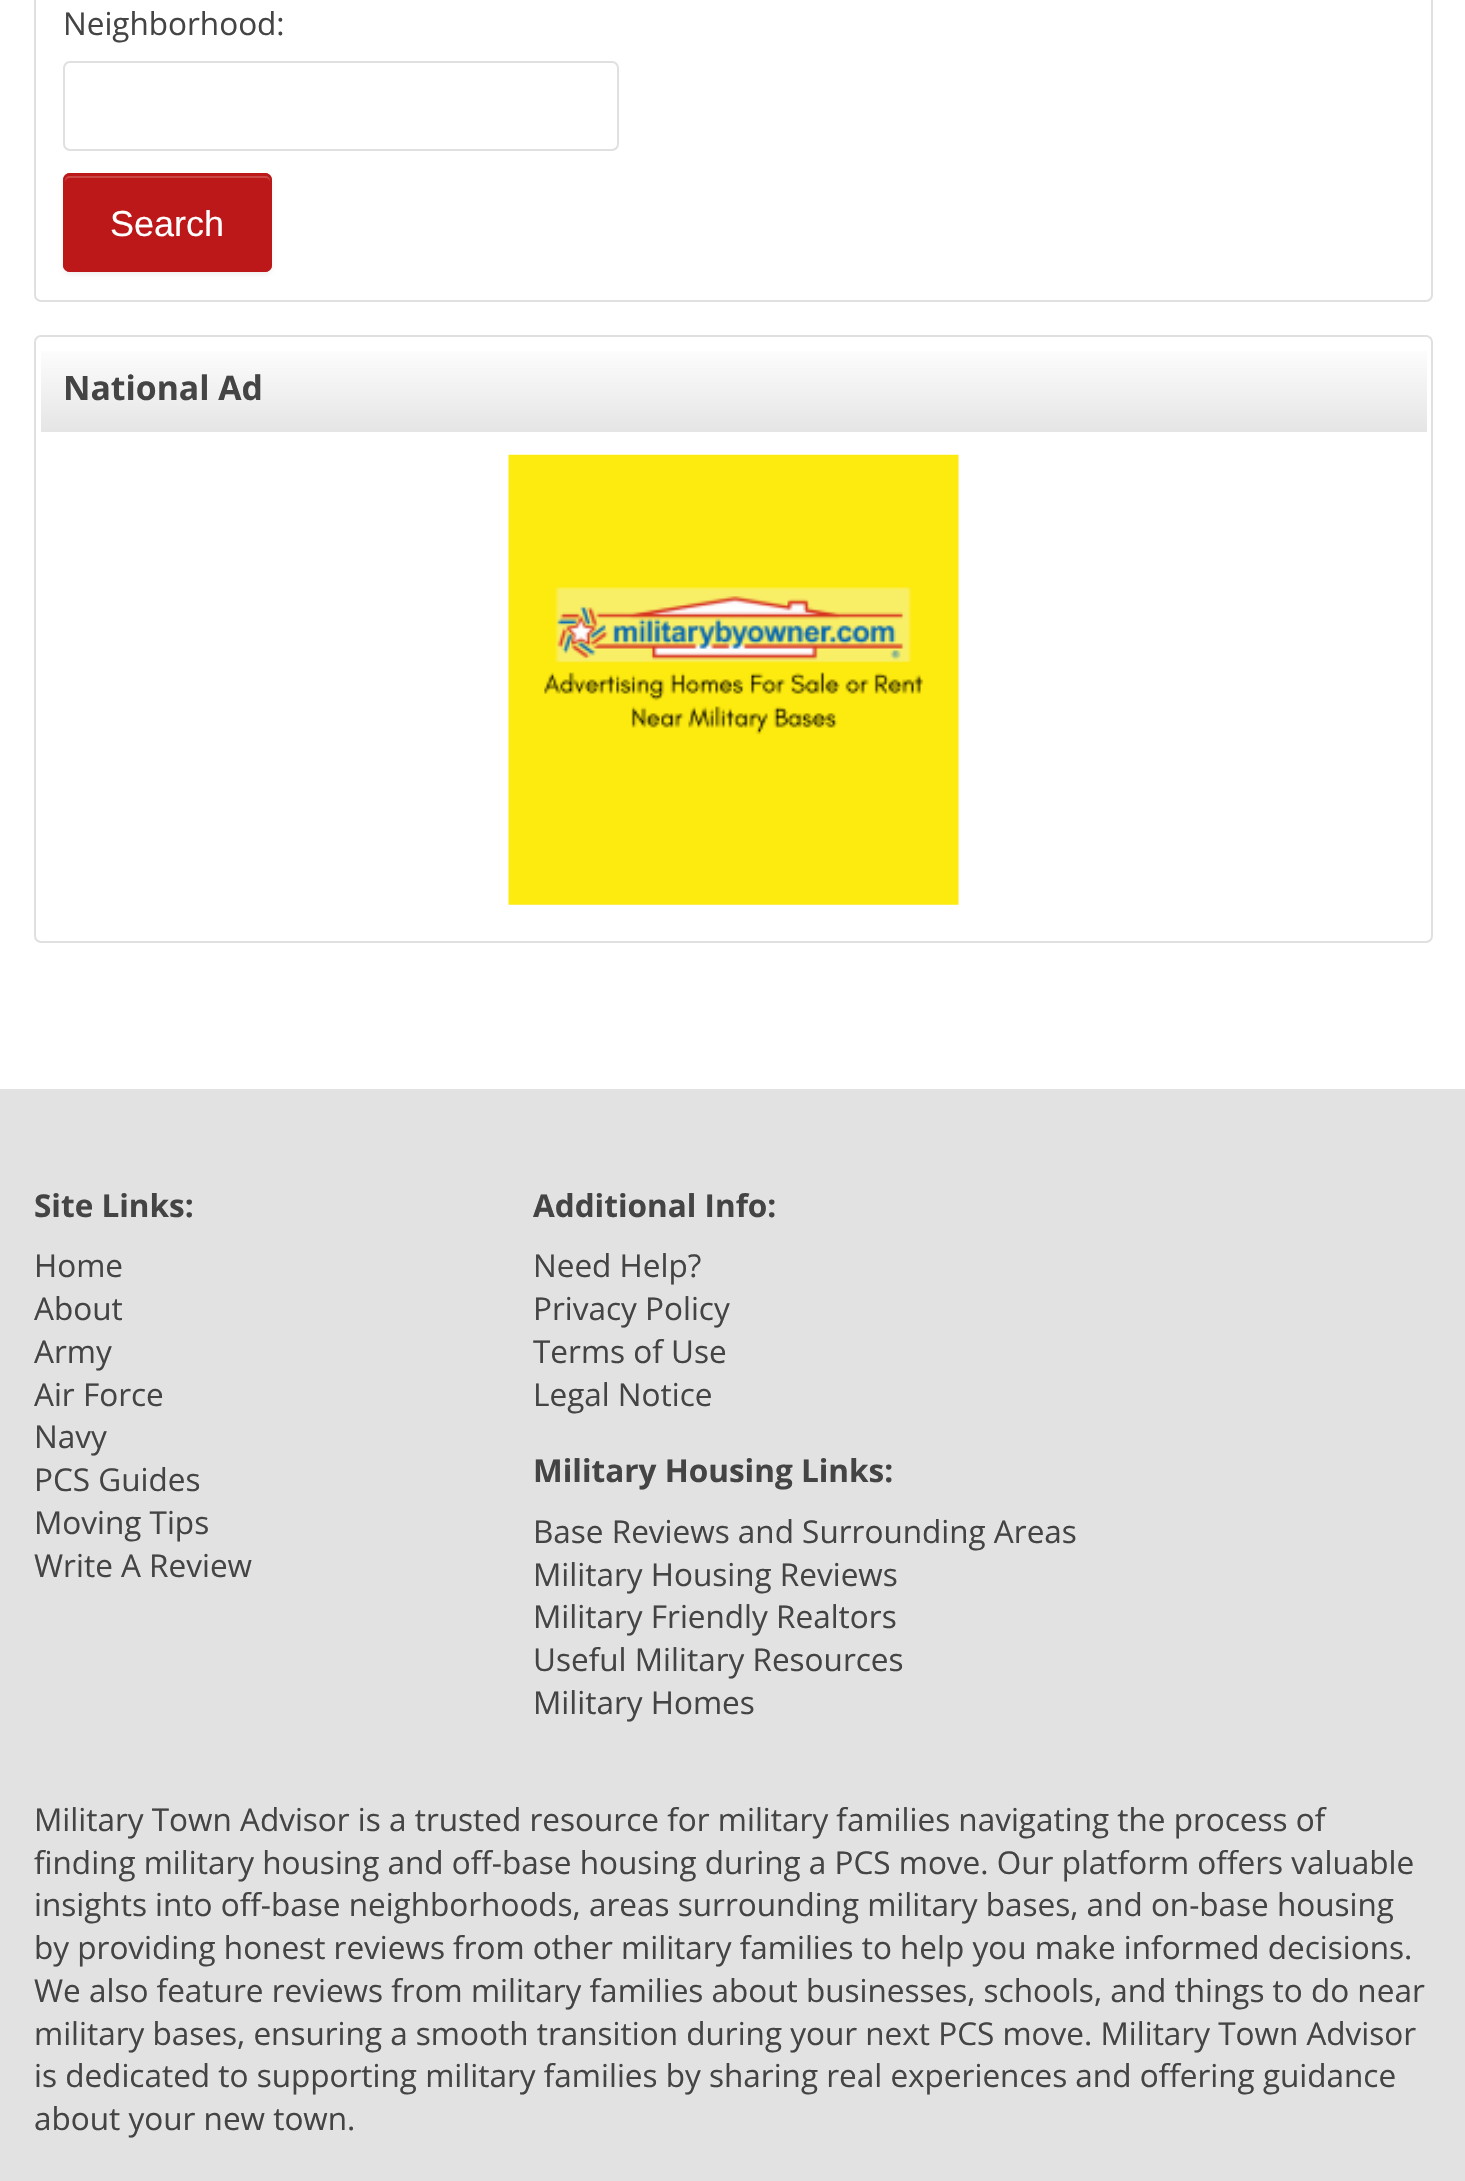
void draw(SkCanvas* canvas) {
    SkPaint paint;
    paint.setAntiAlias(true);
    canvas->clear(0xFFFFFFFF);
    paint.setStyle(SkPaint::kStroke_Style);
    paint.setStrokeWidth(2);
    paint.setColor(0xFFE0E0E0);
    canvas->drawRoundRect(SkRect::MakeXYWH(35, -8, 1397, 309), 6, 6, paint);
    SkFont font1(fontMgr->matchFamilyStyle("Open Sans", SkFontStyle::Normal()), 31.5f);
    font1.setSubpixel(true);
    paint.setStyle(SkPaint::kFill_Style);
    paint.setColor(0xFF444444);
    canvas->drawString("Neighborhood:", 63, 35, font1, paint);
    paint.setStyle(SkPaint::kStroke_Style);
    paint.setColor(0xFFE0E0E0);
    canvas->drawRoundRect(SkRect::MakeXYWH(64, 62, 554, 88), 6, 6, paint);
    paint.setStyle(SkPaint::kFill_Style);
    paint.setColor(0x0D000000);
    paint.setMaskFilter(SkMaskFilter::MakeBlur(kNormal_SkBlurStyle, 2));
    canvas->drawRoundRect(SkRect::MakeXYWH(63, 176, 209, 99), 7, 7, paint);
    paint.setMaskFilter(nullptr);
    paint.setColor(0xFFBD1819);
    canvas->drawRoundRect(SkRect::MakeXYWH(63, 173, 209, 99), 7, 7, paint);
    paint.setColor(0xFFCA4647);
    canvas->drawPath(SkPathBuilder().moveTo(70, 178).lineTo(266, 178).cubicTo(268, 178, 270, 180, 270, 182).lineTo(270, 181).cubicTo(270, 178, 268, 176, 265, 176).lineTo(70, 176).cubicTo(67, 176, 65, 178, 65, 181).lineTo(65, 182).cubicTo(65, 180, 67, 178, 70, 178).close().detach(), paint);
    paint.setStyle(SkPaint::kStroke_Style);
    paint.setColor(0xFFBD1819);
    canvas->drawRoundRect(SkRect::MakeXYWH(64, 174, 207, 97), 6, 6, paint);
    SkFont font2(fontMgr->matchFamilyStyle("Liberation Sans", SkFontStyle::Normal()), 36);
    font2.setSubpixel(true);
    paint.setStyle(SkPaint::kFill_Style);
    paint.setColor(0xFFFFFFFF);
    canvas->drawString("Search", 110, 236, font2, paint);
    paint.setStyle(SkPaint::kStroke_Style);
    paint.setColor(0xFFE0E0E0);
    canvas->drawRoundRect(SkRect::MakeXYWH(35, 336, 1397, 606), 6, 6, paint);
    paint.setStyle(SkPaint::kFill_Style);
    {
        const SkColor colors[] = {0xFFFFFFFF, 0xFFE5E5E5};
        const float stops[] = {0, 1};
        const SkPoint ends[] = {{734, 342}, {734, 432}};
        paint.setShader(SkGradientShader::MakeLinear(ends, colors, stops, 2, SkTileMode::kClamp));
        paint.setAlpha(255);
    }
    canvas->drawRect(SkRect::MakeXYWH(41, 351, 1386, 81), paint);
    SkFont font3(fontMgr->matchFamilyStyle("Open Sans", SkFontStyle::Bold()), 33.75f);
    font3.setSubpixel(true);
    paint.setShader(nullptr);
    paint.setColor(0xFF444444);
    canvas->drawString("National Ad", 63, 400, font3, paint);
    canvas->drawImageRect(SkImages::DeferredFromEncodedData(SkData::MakeFromFileName("img1.png")), SkRect::MakeXYWH(508, 454, 451, 451), SkSamplingOptions());
    paint.setColor(0xFFE2E2E2);
    canvas->drawRect(SkRect::MakeXYWH(0, 1089, 1465, 1092), paint);
    SkFont font4(fontMgr->matchFamilyStyle("Open Sans", SkFontStyle::Bold()), 31.5f);
    font4.setSubpixel(true);
    paint.setColor(0xFF444444);
    canvas->drawString("Site Links:", 34, 1217, font4, paint);
    canvas->drawString("Home", 34, 1277, font1, paint);
    canvas->drawString("About", 34, 1320, font1, paint);
    canvas->drawString("Army", 34, 1363, font1, paint);
    canvas->drawString("Air Force", 34, 1406, font1, paint);
    canvas->drawString("Navy", 34, 1448, font1, paint);
    canvas->drawString("PCS Guides", 34, 1491, font1, paint);
    canvas->drawString("Moving Tips", 34, 1534, font1, paint);
    canvas->drawString("Write A Review", 34, 1577, font1, paint);
    canvas->drawString("Additional Info:", 533, 1217, font4, paint);
    canvas->drawString("Need Help?", 533, 1277, font1, paint);
    canvas->drawString("Privacy Policy", 533, 1320, font1, paint);
    canvas->drawString("Terms of Use", 533, 1363, font1, paint);
    canvas->drawString("Legal Notice", 533, 1406, font1, paint);
    canvas->drawString("Military Housing Links:", 533, 1482, font4, paint);
    canvas->drawString("Base Reviews and Surrounding Areas", 533, 1543, font1, paint);
    canvas->drawString("Military Housing Reviews", 533, 1586, font1, paint);
    canvas->drawString("Military Friendly Realtors", 533, 1628, font1, paint);
    canvas->drawString("Useful Military Resources", 533, 1671, font1, paint);
    canvas->drawString("Military Homes", 533, 1714, font1, paint);
    canvas->drawString("Military Town Advisor is a trusted resource for military families navigating the process of", 34, 1831, font1, paint);
    canvas->drawString("finding military housing and off-base housing during a PCS move. Our platform offers valuable", 34, 1874, font1, paint);
    canvas->drawString("insights into off-base neighborhoods, areas surrounding military bases, and on-base housing", 34, 1916, font1, paint);
    canvas->drawString("by providing honest reviews from other military families to help you make informed decisions.", 34, 1959, font1, paint);
    canvas->drawString("We also feature reviews from military families about businesses, schools, and things to do near", 34, 2002, font1, paint);
    canvas->drawString("military bases, ensuring a smooth transition during your next PCS move. Military Town Advisor", 34, 2045, font1, paint);
    canvas->drawString("is dedicated to supporting military families by sharing real experiences and offering guidance", 34, 2087, font1, paint);
    canvas->drawString("about your new town.", 34, 2130, font1, paint);
}
